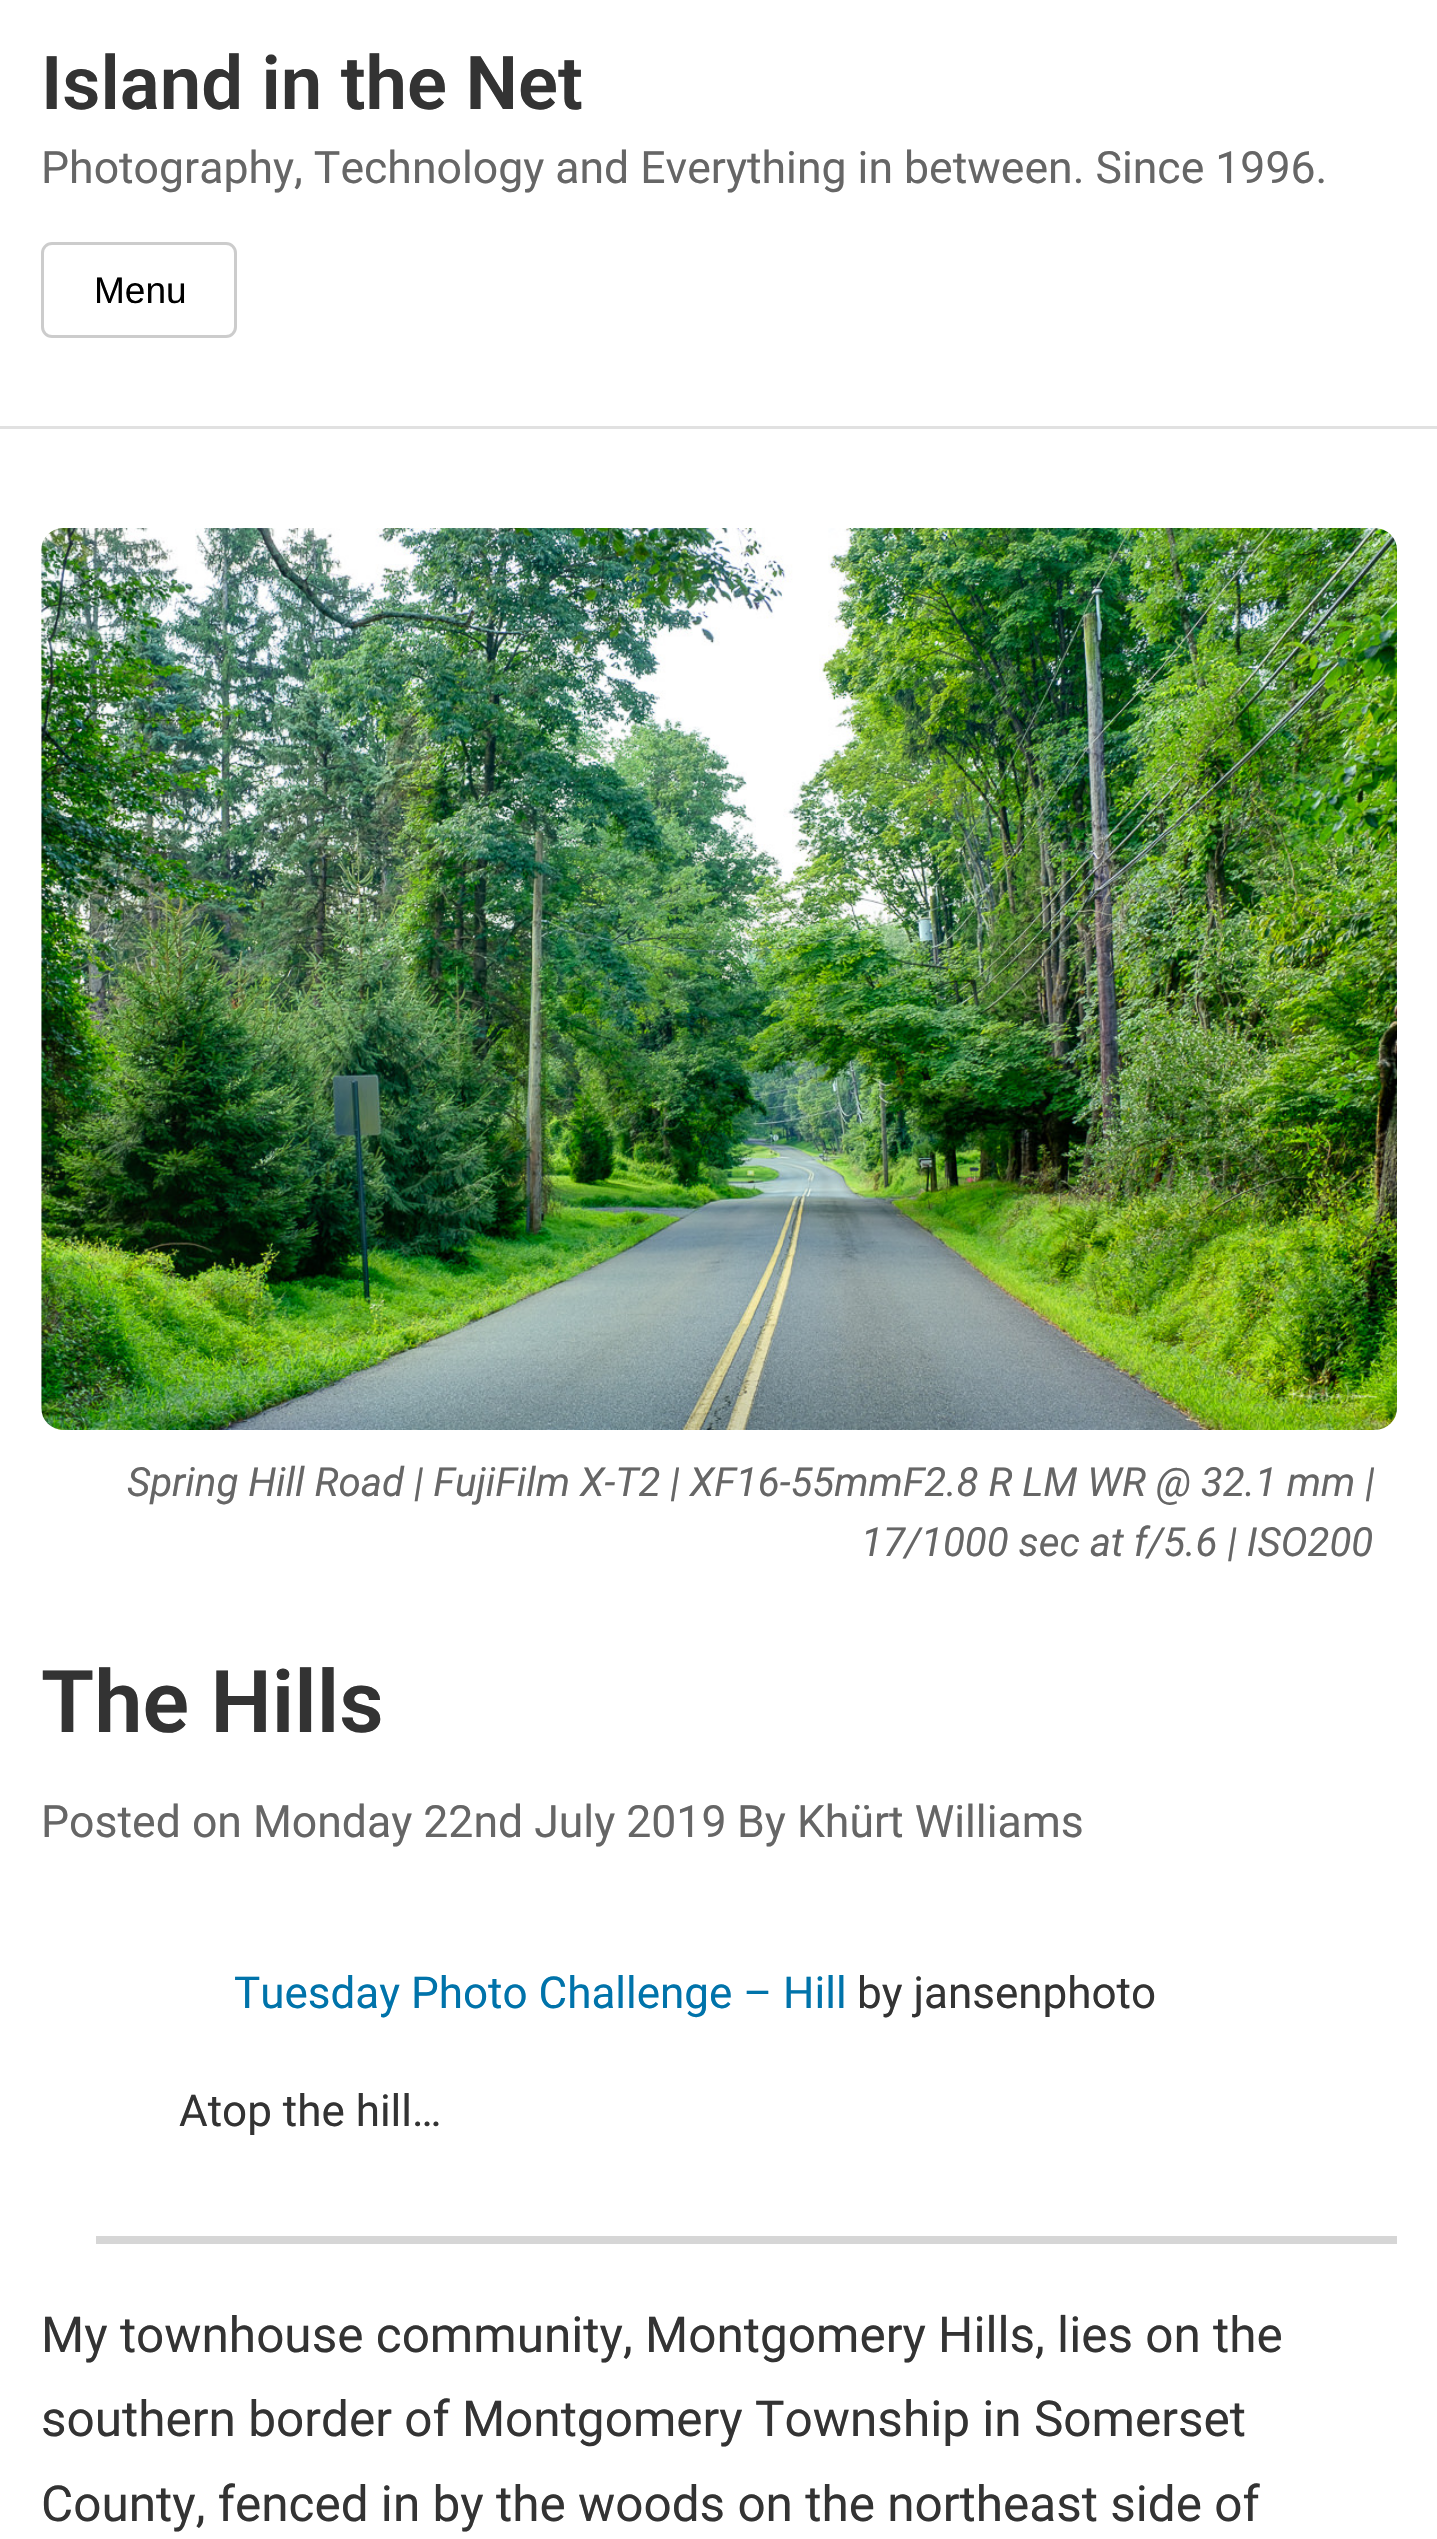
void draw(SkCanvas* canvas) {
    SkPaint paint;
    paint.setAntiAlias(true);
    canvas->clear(0xFFFFFFFF);
    paint.setColor(0xFFE1E1E1);
    canvas->drawRect(SkRect::MakeXYWH(0, 426, 1437, 3), paint);
    SkFont font1(fontMgr->matchFamilyStyle("Roboto", SkFontStyle(600, SkFontStyle::kNormal_Width, SkFontStyle::kUpright_Slant)), 74.25f);
    font1.setSubpixel(true);
    paint.setColor(0xFF333333);
    canvas->drawString("Island in the Net", 41, 109, font1, paint);
    SkFont font2(fontMgr->matchFamilyStyle("Roboto", SkFontStyle::Normal()), 44.55f);
    font2.setSubpixel(true);
    paint.setColor(0xFF666666);
    canvas->drawString("Photography, Technology and Everything in between. Since 1996.", 41, 183, font2, paint);
    paint.setStyle(SkPaint::kStroke_Style);
    paint.setStrokeWidth(3);
    paint.setColor(0xFFCCCCCC);
    canvas->drawRoundRect(SkRect::MakeXYWH(42.5f, 243.5f, 193, 93), 9.5f, 9.5f, paint);
    SkFont font3(fontMgr->matchFamilyStyle("Liberation Sans", SkFontStyle::Normal()), 37);
    font3.setSubpixel(true);
    paint.setStyle(SkPaint::kFill_Style);
    paint.setColor(0xFF000000);
    canvas->drawString("Menu", 94, 303, font3, paint);
    canvas->drawImageRect(SkImages::DeferredFromEncodedData(SkData::MakeFromFileName("img1.png")), SkRect::MakeXYWH(41, 528, 1356, 902), SkSamplingOptions());
    SkFont font4(fontMgr->matchFamilyStyle("Roboto", SkFontStyle::Italic()), 40.25f);
    font4.setSubpixel(true);
    paint.setColor(0xFF666666);
    canvas->drawString("Spring Hill Road | FujiFilm X-T2 | XF16-55mmF2.8 R LM WR @ 32.1 mm |", 127, 1496, font4, paint);
    canvas->drawString("17/1000 sec at f/5.6 | ISO200", 861, 1556, font4, paint);
    SkFont font5(fontMgr->matchFamilyStyle("Roboto", SkFontStyle(600, SkFontStyle::kNormal_Width, SkFontStyle::kUpright_Slant)), 86.5f);
    font5.setSubpixel(true);
    paint.setColor(0xFF333333);
    canvas->drawString("The Hills", 41, 1732, font5, paint);
    paint.setColor(0xFF666666);
    canvas->drawString("Posted on Monday 22nd July 2019", 41, 1837, font2, paint);
    canvas->drawString("By Khürt Williams", 737, 1837, font2, paint);
    paint.setColor(0xFFD6D6D6);
    canvas->drawRect(SkRect::MakeXYWH(96, 2236, 1301, 8), paint);
    SkFont font6(fontMgr->matchFamilyStyle("Roboto", SkFontStyle::Normal()), 44);
    font6.setSubpixel(true);
    paint.setColor(0xFF0073AA);
    canvas->drawString("Tuesday Photo Challenge – Hill", 234, 2008, font6, paint);
    paint.setColor(0xFF333333);
    canvas->drawString("by jansenphoto", 857, 2008, font6, paint);
    canvas->drawString("Atop the hill…", 179, 2126, font6, paint);
    SkFont font7(fontMgr->matchFamilyStyle("Roboto", SkFontStyle::Normal()), 49.5f);
    font7.setSubpixel(true);
    canvas->drawString("My townhouse community, Montgomery Hills, lies on the", 41, 2352, font7, paint);
    canvas->drawString("southern border of Montgomery Township in Somerset", 41, 2436, font7, paint);
    canvas->drawString("County, fenced in by the woods on the northeast side of", 41, 2521, font7, paint);
}
